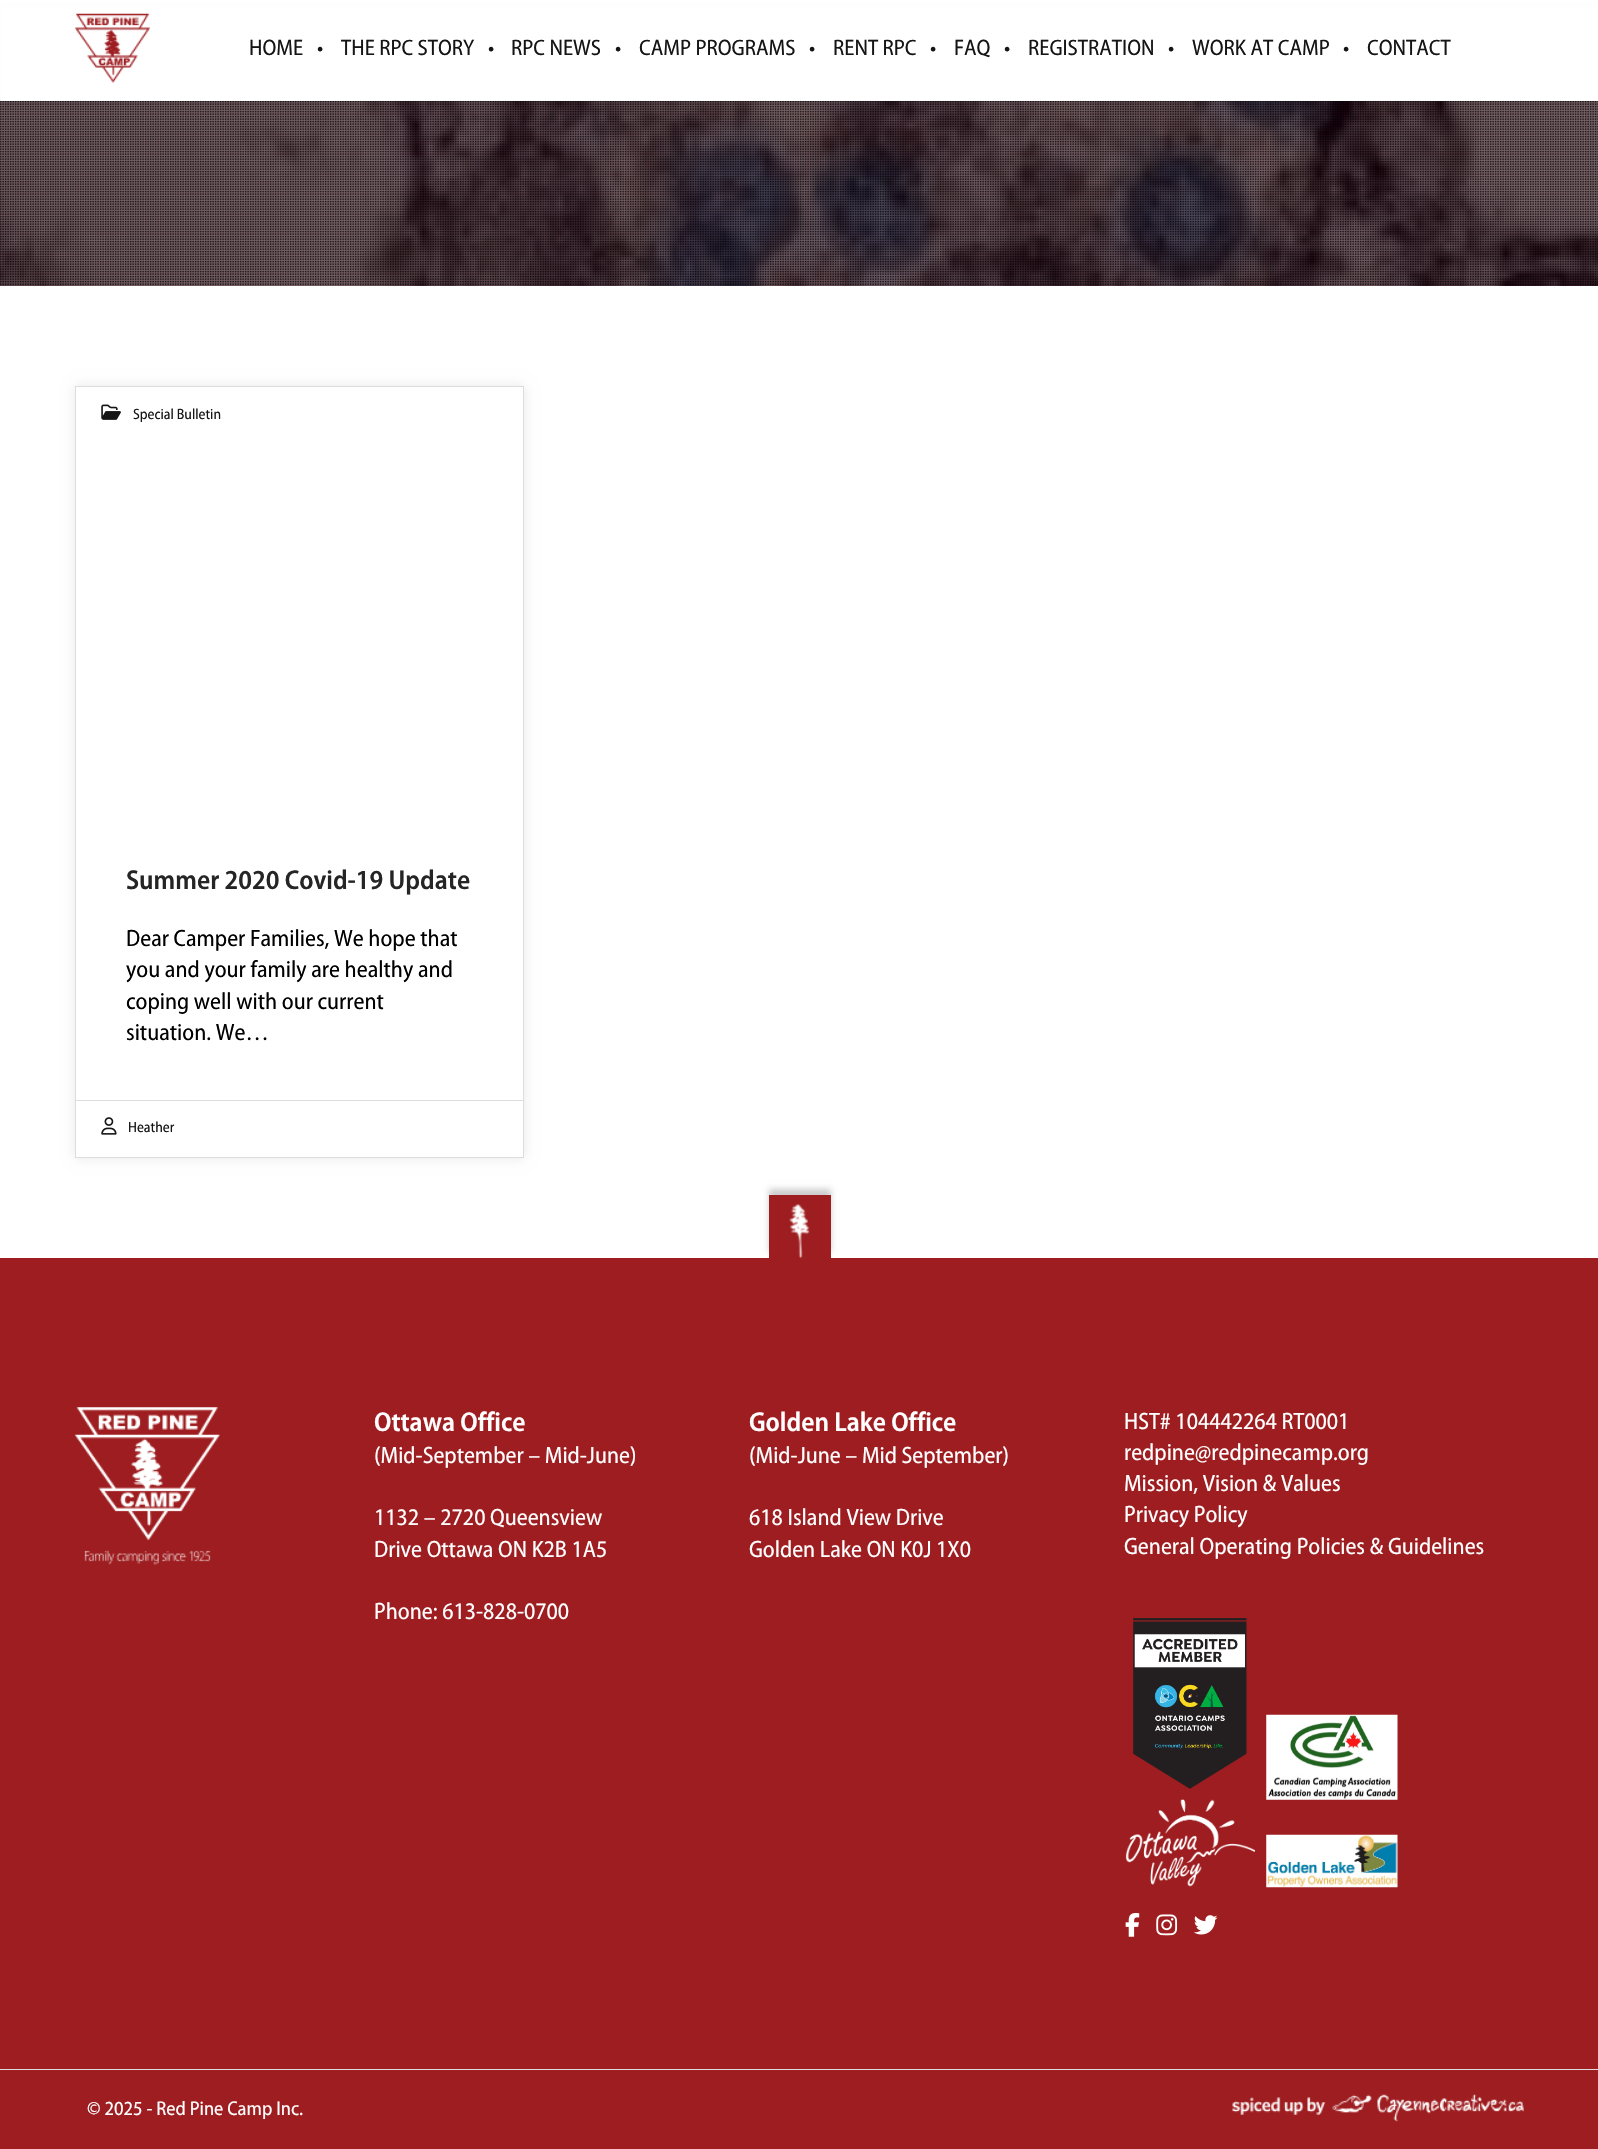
void draw(SkCanvas* canvas) {
    SkPaint paint;
    paint.setAntiAlias(true);
    canvas->clear(0xFFFFFFFF);
    canvas->drawImageRect(SkImages::DeferredFromEncodedData(SkData::MakeFromFileName("img2.png")), SkRect::MakeXYWH(0, 101, 1598, 185), SkSamplingOptions());
    canvas->drawImageRect(SkImages::DeferredFromEncodedData(SkData::MakeFromFileName("img3.png")), SkRect::MakeXYWH(0, 101, 1598, 185), SkSamplingOptions());
    paint.setColor(0x1A000000);
    paint.setMaskFilter(SkMaskFilter::MakeBlur(kNormal_SkBlurStyle, 3));
    canvas->drawRect(SkRect::MakeXYWH(5, 11, 1589, 92), paint);
    paint.setMaskFilter(nullptr);
    paint.setColor(0xFFFFFFFF);
    canvas->drawRect(SkRect::MakeXYWH(1, 7, 1597, 94), paint);
    canvas->drawImageRect(SkImages::DeferredFromEncodedData(SkData::MakeFromFileName("img1.png")), SkRect::MakeXYWH(74, 13, 76, 70), SkSamplingOptions());
    SkFont font1(fontMgr->matchFamilyStyle("Myriad", SkFontStyle::Normal()), 22.5f);
    font1.setSubpixel(true);
    paint.setColor(0xFF151515);
    canvas->drawString("HOME", 249, 55, font1, paint);
    canvas->drawString("•", 317, 55, font1, paint);
    canvas->drawString("THE RPC STORY", 341, 55, font1, paint);
    canvas->drawString("•", 488, 55, font1, paint);
    canvas->drawString("RPC NEWS", 511, 55, font1, paint);
    canvas->drawString("•", 615, 55, font1, paint);
    canvas->drawString("CAMP PROGRAMS", 639, 55, font1, paint);
    canvas->drawString("•", 809, 55, font1, paint);
    canvas->drawString("RENT RPC", 833, 55, font1, paint);
    canvas->drawString("•", 930, 55, font1, paint);
    canvas->drawString("FAQ", 954, 55, font1, paint);
    canvas->drawString("•", 1004, 55, font1, paint);
    canvas->drawString("REGISTRATION", 1028, 55, font1, paint);
    canvas->drawString("•", 1168, 55, font1, paint);
    canvas->drawString("WORK AT CAMP", 1192, 55, font1, paint);
    canvas->drawString("•", 1343, 55, font1, paint);
    canvas->drawString("CONTACT", 1367, 55, font1, paint);
    paint.setColor(0x17000000);
    paint.setMaskFilter(SkMaskFilter::MakeBlur(kNormal_SkBlurStyle, 6));
    canvas->drawRect(SkRect::MakeXYWH(75, 386, 449, 772), paint);
    paint.setMaskFilter(nullptr);
    paint.setColor(0xFFFFFFFF);
    canvas->drawRect(SkRect::MakeXYWH(75.5f, 386.5f, 448, 771), paint);
    paint.setStyle(SkPaint::kStroke_Style);
    paint.setStrokeWidth(1);
    paint.setColor(0xFFDDDDDD);
    canvas->drawRect(SkRect::MakeXYWH(75.5f, 386.5f, 448, 771), paint);
    canvas->drawImageRect(SkImages::DeferredFromEncodedData(SkData::MakeFromFileName("img4.png")), SkRect::MakeXYWH(101, 404, 20, 16), SkSamplingOptions());
    SkFont font2(fontMgr->matchFamilyStyle("Myriad", SkFontStyle::Normal()), 15);
    font2.setSubpixel(true);
    paint.setStyle(SkPaint::kFill_Style);
    paint.setColor(0xFF151515);
    canvas->drawString("Special Bulletin", 133, 419, font2, paint);
    SkFont font3(fontMgr->matchFamilyStyle("Myriad", SkFontStyle(600, SkFontStyle::kNormal_Width, SkFontStyle::kUpright_Slant)), 27.5f);
    font3.setSubpixel(true);
    paint.setColor(0xFF252525);
    canvas->drawString("Summer 2020 Covid-19 Update", 126, 889, font3, paint);
    SkFont font4(fontMgr->matchFamilyStyle("Myriad", SkFontStyle::Normal()), 23.75f);
    font4.setSubpixel(true);
    paint.setColor(0xFF000000);
    canvas->drawString("Dear Camper Families, We hope that", 126, 946, font4, paint);
    canvas->drawString("you and your family are healthy and", 126, 977, font4, paint);
    canvas->drawString("coping well with our current", 126, 1009, font4, paint);
    canvas->drawString("situation. We…", 126, 1040, font4, paint);
    paint.setColor(0xFFDDDDDD);
    canvas->drawRect(SkRect::MakeXYWH(76, 1100, 447, 1), paint);
    canvas->drawImageRect(SkImages::DeferredFromEncodedData(SkData::MakeFromFileName("img5.png")), SkRect::MakeXYWH(101, 1117, 16, 18), SkSamplingOptions());
    paint.setColor(0xFF151515);
    canvas->drawString("Heather", 128, 1132, font2, paint);
    paint.setColor(0xFF9E1D20);
    canvas->drawRect(SkRect::MakeXYWH(0, 1258, 1598, 891), paint);
    paint.setColor(0x33000000);
    paint.setMaskFilter(SkMaskFilter::MakeBlur(kNormal_SkBlurStyle, 3));
    canvas->drawRect(SkRect::MakeXYWH(769, 1189, 62, 62), paint);
    paint.setMaskFilter(nullptr);
    paint.setColor(0xFF9E1D20);
    canvas->drawRect(SkRect::MakeXYWH(769, 1195, 62, 63), paint);
    canvas->drawImageRect(SkImages::DeferredFromEncodedData(SkData::MakeFromFileName("img6.png")), SkRect::MakeXYWH(789, 1204, 21, 54), SkSamplingOptions());
    canvas->drawImageRect(SkImages::DeferredFromEncodedData(SkData::MakeFromFileName("img7.png")), SkRect::MakeXYWH(75, 1407, 145, 158), SkSamplingOptions());
    paint.setColor(0xFFFFFFFF);
    canvas->drawString("Ottawa Office", 374, 1431, font3, paint);
    canvas->drawString("(Mid-September – Mid-June)", 374, 1463, font4, paint);
    canvas->drawString("1132 – 2720 Queensview", 374, 1525, font4, paint);
    canvas->drawString("Drive Ottawa ON K2B 1A5", 374, 1557, font4, paint);
    canvas->drawString("Phone: 613-828-0700", 374, 1619, font4, paint);
    canvas->drawString("Golden Lake Office", 749, 1431, font3, paint);
    canvas->drawString("(Mid-June – Mid September)", 749, 1463, font4, paint);
    canvas->drawString("618 Island View Drive", 749, 1525, font4, paint);
    canvas->drawString("Golden Lake ON K0J 1X0", 749, 1557, font4, paint);
    canvas->drawString("HST# 104442264 RT0001", 1124, 1429, font4, paint);
    canvas->drawString("redpine@redpinecamp.org", 1124, 1460, font4, paint);
    canvas->drawString("Mission, Vision & Values", 1124, 1491, font4, paint);
    canvas->drawString("Privacy Policy", 1124, 1522, font4, paint);
    canvas->drawString("General Operating Policies & Guidelines", 1124, 1554, font4, paint);
    canvas->drawImageRect(SkImages::DeferredFromEncodedData(SkData::MakeFromFileName("img8.png")), SkRect::MakeXYWH(1133, 1618, 114, 171), SkSamplingOptions());
    canvas->drawImageRect(SkImages::DeferredFromEncodedData(SkData::MakeFromFileName("img9.png")), SkRect::MakeXYWH(1266, 1714, 132, 86), SkSamplingOptions());
    canvas->drawImageRect(SkImages::DeferredFromEncodedData(SkData::MakeFromFileName("img10.png")), SkRect::MakeXYWH(1125, 1799, 130, 88), SkSamplingOptions());
    canvas->drawImageRect(SkImages::DeferredFromEncodedData(SkData::MakeFromFileName("img11.png")), SkRect::MakeXYWH(1266, 1834, 132, 54), SkSamplingOptions());
    canvas->drawImageRect(SkImages::DeferredFromEncodedData(SkData::MakeFromFileName("img12.png")), SkRect::MakeXYWH(1125, 1913, 15, 24), SkSamplingOptions());
    canvas->drawImageRect(SkImages::DeferredFromEncodedData(SkData::MakeFromFileName("img13.png")), SkRect::MakeXYWH(1156, 1914, 22, 22), SkSamplingOptions());
    canvas->drawImageRect(SkImages::DeferredFromEncodedData(SkData::MakeFromFileName("img14.png")), SkRect::MakeXYWH(1194, 1915, 24, 20), SkSamplingOptions());
    paint.setColor(0xFFDDDDDD);
    canvas->drawRect(SkRect::MakeXYWH(0, 2069, 1598, 1), paint);
    SkFont font5(fontMgr->matchFamilyStyle("Myriad", SkFontStyle::Normal()), 20);
    font5.setSubpixel(true);
    paint.setColor(0xFFFFFFFF);
    canvas->drawString("© 2025 - Red Pine Camp Inc.", 87, 2115, font5, paint);
    canvas->drawImageRect(SkImages::DeferredFromEncodedData(SkData::MakeFromFileName("img15.png")), SkRect::MakeXYWH(1232, 2094, 292, 28), SkSamplingOptions());
}
